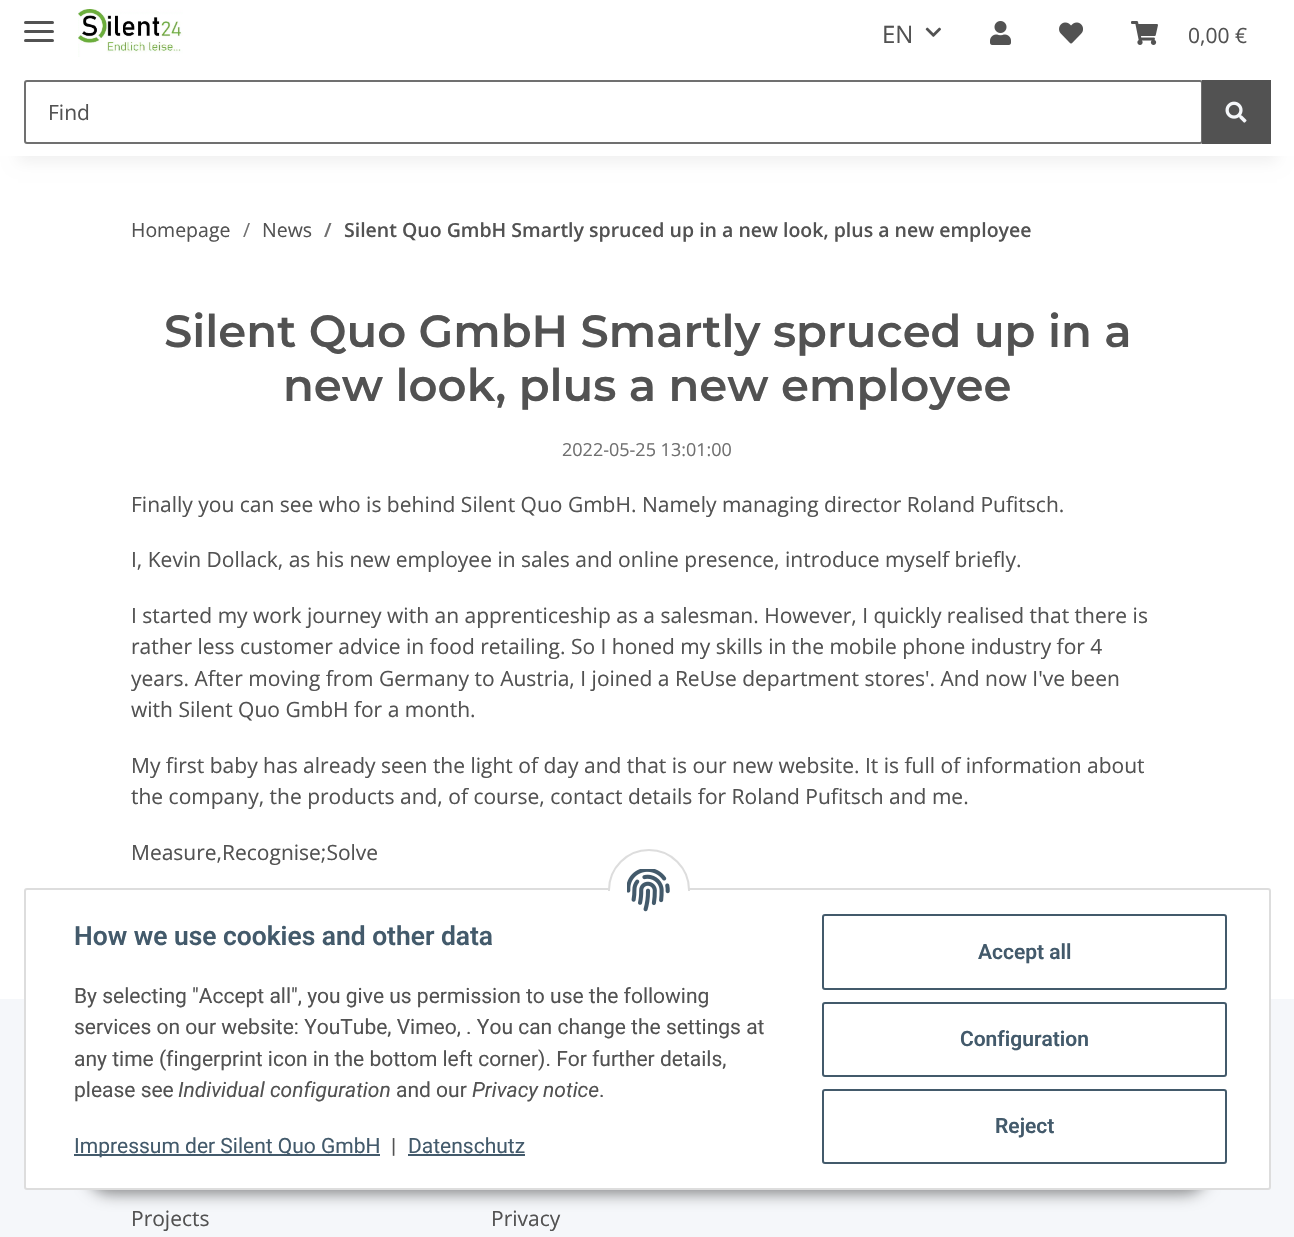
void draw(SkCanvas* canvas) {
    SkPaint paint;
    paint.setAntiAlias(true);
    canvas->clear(0xFFF5F7FA);
    paint.setColor(0xFFFFFFFF);
    canvas->drawRect(SkRect::MakeXYWH(0, 156, 1294, 843), paint);
    paint.setColor(0x0F000000);
    paint.setMaskFilter(SkMaskFilter::MakeBlur(kNormal_SkBlurStyle, 7));
    canvas->drawRect(SkRect::MakeXYWH(18, 42, 1259, 120), paint);
    paint.setMaskFilter(nullptr);
    paint.setColor(0xFFFFFFFF);
    canvas->drawRect(SkRect::MakeXYWH(0, 0, 1294, 156), paint);
    paint.setColor(0xFF525252);
    canvas->drawRoundRect(SkRect::MakeXYWH(24, 30, 30, 3), 1.5f, 1.5f, paint);
    canvas->drawRoundRect(SkRect::MakeXYWH(24, 21, 30, 3), 1.5f, 1.5f, paint);
    canvas->drawRoundRect(SkRect::MakeXYWH(24, 39, 30, 3), 1.5f, 1.5f, paint);
    canvas->drawImageRect(SkImages::DeferredFromEncodedData(SkData::MakeFromFileName("img1.png")), SkRect::MakeXYWH(78, 9, 105, 48), SkSamplingOptions());
    SkFont font1(fontMgr->matchFamilyStyle("Open Sans", SkFontStyle::Normal()), 24);
    font1.setSubpixel(true);
    canvas->drawString("EN", 882, 43, font1, paint);
    canvas->drawImageRect(SkImages::DeferredFromEncodedData(SkData::MakeFromFileName("img2.png")), SkRect::MakeXYWH(925, 27, 16, 10), SkSamplingOptions());
    canvas->drawImageRect(SkImages::DeferredFromEncodedData(SkData::MakeFromFileName("img3.png")), SkRect::MakeXYWH(990, 21, 21, 24), SkSamplingOptions());
    canvas->drawImageRect(SkImages::DeferredFromEncodedData(SkData::MakeFromFileName("img4.png")), SkRect::MakeXYWH(1059, 22, 24, 22), SkSamplingOptions());
    canvas->drawImageRect(SkImages::DeferredFromEncodedData(SkData::MakeFromFileName("img5.png")), SkRect::MakeXYWH(1131, 21, 27, 24), SkSamplingOptions());
    SkFont font2(fontMgr->matchFamilyStyle("Open Sans", SkFontStyle::Normal()), 21);
    font2.setSubpixel(true);
    canvas->drawString("0,00 €", 1188, 43, font2, paint);
    paint.setStyle(SkPaint::kStroke_Style);
    paint.setStrokeWidth(2);
    paint.setColor(0xFF707070);
    canvas->drawRoundRect(SkRect::MakeXYWH(25, 81, 1177, 62), 2, 2, paint);
    paint.setStyle(SkPaint::kFill_Style);
    paint.setColor(0xFF525252);
    canvas->drawString("Find", 48, 120, font2, paint);
    canvas->drawRect(SkRect::MakeXYWH(1202, 80, 69, 64), paint);
    canvas->drawImageRect(SkImages::DeferredFromEncodedData(SkData::MakeFromFileName("img6.png")), SkRect::MakeXYWH(1225, 101, 22, 22), SkSamplingOptions());
    SkFont font3(fontMgr->matchFamilyStyle("Open Sans", SkFontStyle::Normal()), 19.5f);
    font3.setSubpixel(true);
    canvas->drawString("Homepage", 131, 237, font3, paint);
    paint.setColor(0xFF707070);
    canvas->drawString("/", 243, 237, font3, paint);
    paint.setColor(0xFF525252);
    canvas->drawString("News", 262, 237, font3, paint);
    SkFont font4(fontMgr->matchFamilyStyle("Open Sans", SkFontStyle(600, SkFontStyle::kNormal_Width, SkFontStyle::kUpright_Slant)), 19.5f);
    font4.setSubpixel(true);
    paint.setColor(0xFF707070);
    canvas->drawString("/", 324, 237, font4, paint);
    paint.setColor(0xFF525252);
    canvas->drawString("Silent Quo GmbH Smartly spruced up in a new look, plus a new employee", 344, 237, font4, paint);
    SkFont font5(fontMgr->matchFamilyStyle("Montserrat", SkFontStyle(600, SkFontStyle::kNormal_Width, SkFontStyle::kUpright_Slant)), 45);
    font5.setSubpixel(true);
    canvas->drawString("Silent Quo GmbH Smartly spruced up in a", 164, 347, font5, paint);
    canvas->drawString("new look, plus a new employee", 283, 401, font5, paint);
    SkFont font6(fontMgr->matchFamilyStyle("Open Sans", SkFontStyle::Normal()), 18);
    font6.setSubpixel(true);
    paint.setColor(0xFF707070);
    canvas->drawString("2022-05-25 13:01:00", 562, 456, font6, paint);
    paint.setColor(0xFF525252);
    canvas->drawString("Finally you can see who is behind Silent Quo GmbH. Namely managing director Roland Pufitsch.", 131, 512, font2, paint);
    canvas->drawString("I, Kevin Dollack, as his new employee in sales and online presence, introduce myself briefly.", 131, 567, font2, paint);
    canvas->drawString("I started my work journey with an apprenticeship as a salesman. However, I quickly realised that there is", 131, 623, font2, paint);
    canvas->drawString("rather less customer advice in food retailing. So I honed my skills in the mobile phone industry for 4", 131, 654, font2, paint);
    canvas->drawString("years. After moving from Germany to Austria, I joined a ReUse department stores'. And now I've been", 131, 686, font2, paint);
    canvas->drawString("with Silent Quo GmbH for a month.", 131, 717, font2, paint);
    canvas->drawString("My first baby has already seen the light of day and that is our new website. It is full of information about", 131, 773, font2, paint);
    canvas->drawString("the company, the products and, of course, contact details for Roland Pufitsch and me.", 131, 804, font2, paint);
    canvas->drawString("Measure,Recognise;Solve", 131, 860, font2, paint);
    paint.setColor(0x73000000);
    paint.setMaskFilter(SkMaskFilter::MakeBlur(kNormal_SkBlurStyle, 7.5f));
    canvas->drawRoundRect(SkRect::MakeXYWH(87, 1146, 1121, 48), 24, 24, paint);
    paint.setMaskFilter(nullptr);
    paint.setColor(0xFFFFFFFF);
    canvas->drawRoundRect(SkRect::MakeXYWH(25, 889, 1245, 300), 2, 2, paint);
    paint.setStyle(SkPaint::kStroke_Style);
    paint.setColor(0xFFDDDDDD);
    canvas->drawRoundRect(SkRect::MakeXYWH(25, 889, 1245, 300), 2, 2, paint);
    paint.setStyle(SkPaint::kFill_Style);
    paint.setColor(0xFFFFFFFF);
    canvas->drawRoundRect(SkRect::MakeXYWH(609, 850, 80, 81), 40, 40, paint);
    paint.setStyle(SkPaint::kStroke_Style);
    paint.setColor(0xFFDDDDDD);
    canvas->drawRoundRect(SkRect::MakeXYWH(609, 850, 80, 81), 40, 40, paint);
    paint.setStyle(SkPaint::kFill_Style);
    paint.setColor(0xFFFFFFFF);
    canvas->drawRect(SkRect::MakeXYWH(608, 891, 82, 41), paint);
    canvas->drawImageRect(SkImages::DeferredFromEncodedData(SkData::MakeFromFileName("img7.png")), SkRect::MakeXYWH(627, 869, 43, 43), SkSamplingOptions());
    SkFont font7(fontMgr->matchFamilyStyle("Roboto", SkFontStyle(600, SkFontStyle::kNormal_Width, SkFontStyle::kUpright_Slant)), 26.4f);
    font7.setSubpixel(true);
    paint.setColor(0xFF435A6B);
    canvas->drawString("How we use cookies and other data", 74, 945, font7, paint);
    SkFont font8(fontMgr->matchFamilyStyle("Roboto", SkFontStyle::Normal()), 21);
    font8.setSubpixel(true);
    paint.setColor(0xFF525252);
    canvas->drawString("By selecting \"Accept all\", you give us permission to use the following", 74, 1003, font8, paint);
    canvas->drawString("services on our website: YouTube, Vimeo, . You can change the settings at", 74, 1034, font8, paint);
    canvas->drawString("any time (fingerprint icon in the bottom left corner). For further details,", 74, 1066, font8, paint);
    canvas->drawString("please see", 74, 1097, font8, paint);
    SkFont font9(fontMgr->matchFamilyStyle("Roboto", SkFontStyle::Italic()), 21);
    font9.setSubpixel(true);
    canvas->drawString("Individual configuration", 178, 1097, font9, paint);
    canvas->drawString("and our", 396, 1097, font8, paint);
    canvas->drawString("Privacy notice", 472, 1097, font9, paint);
    canvas->drawString(".", 599, 1097, font8, paint);
    paint.setColor(0xFF435A6B);
    canvas->drawRect(SkRect::MakeXYWH(74, 1154, 306, 2), paint);
    canvas->drawString("Impressum der Silent Quo GmbH", 74, 1153, font8, paint);
    paint.setColor(0xFF525252);
    canvas->drawString("|", 391, 1153, font8, paint);
    paint.setColor(0xFF435A6B);
    canvas->drawString("Datenschutz", 408, 1153, font8, paint);
    canvas->drawRect(SkRect::MakeXYWH(408, 1154, 117, 2), paint);
    paint.setStyle(SkPaint::kStroke_Style);
    canvas->drawRoundRect(SkRect::MakeXYWH(823, 915, 403, 74), 2, 2, paint);
    SkFont font10(fontMgr->matchFamilyStyle("Roboto", SkFontStyle(600, SkFontStyle::kNormal_Width, SkFontStyle::kUpright_Slant)), 21);
    font10.setSubpixel(true);
    paint.setStyle(SkPaint::kFill_Style);
    canvas->drawString("Accept all", 978, 959, font10, paint);
    paint.setStyle(SkPaint::kStroke_Style);
    canvas->drawRoundRect(SkRect::MakeXYWH(823, 1003, 403, 73), 2, 2, paint);
    paint.setStyle(SkPaint::kFill_Style);
    canvas->drawString("Configuration", 960, 1046, font10, paint);
    paint.setStyle(SkPaint::kStroke_Style);
    canvas->drawRoundRect(SkRect::MakeXYWH(823, 1090, 403, 73), 2, 2, paint);
    paint.setStyle(SkPaint::kFill_Style);
    canvas->drawString("Reject", 995, 1133, font10, paint);
    paint.setColor(0xFF525252);
    canvas->drawString("Projects", 131, 1226, font2, paint);
    canvas->drawString("Privacy", 491, 1226, font2, paint);
}
